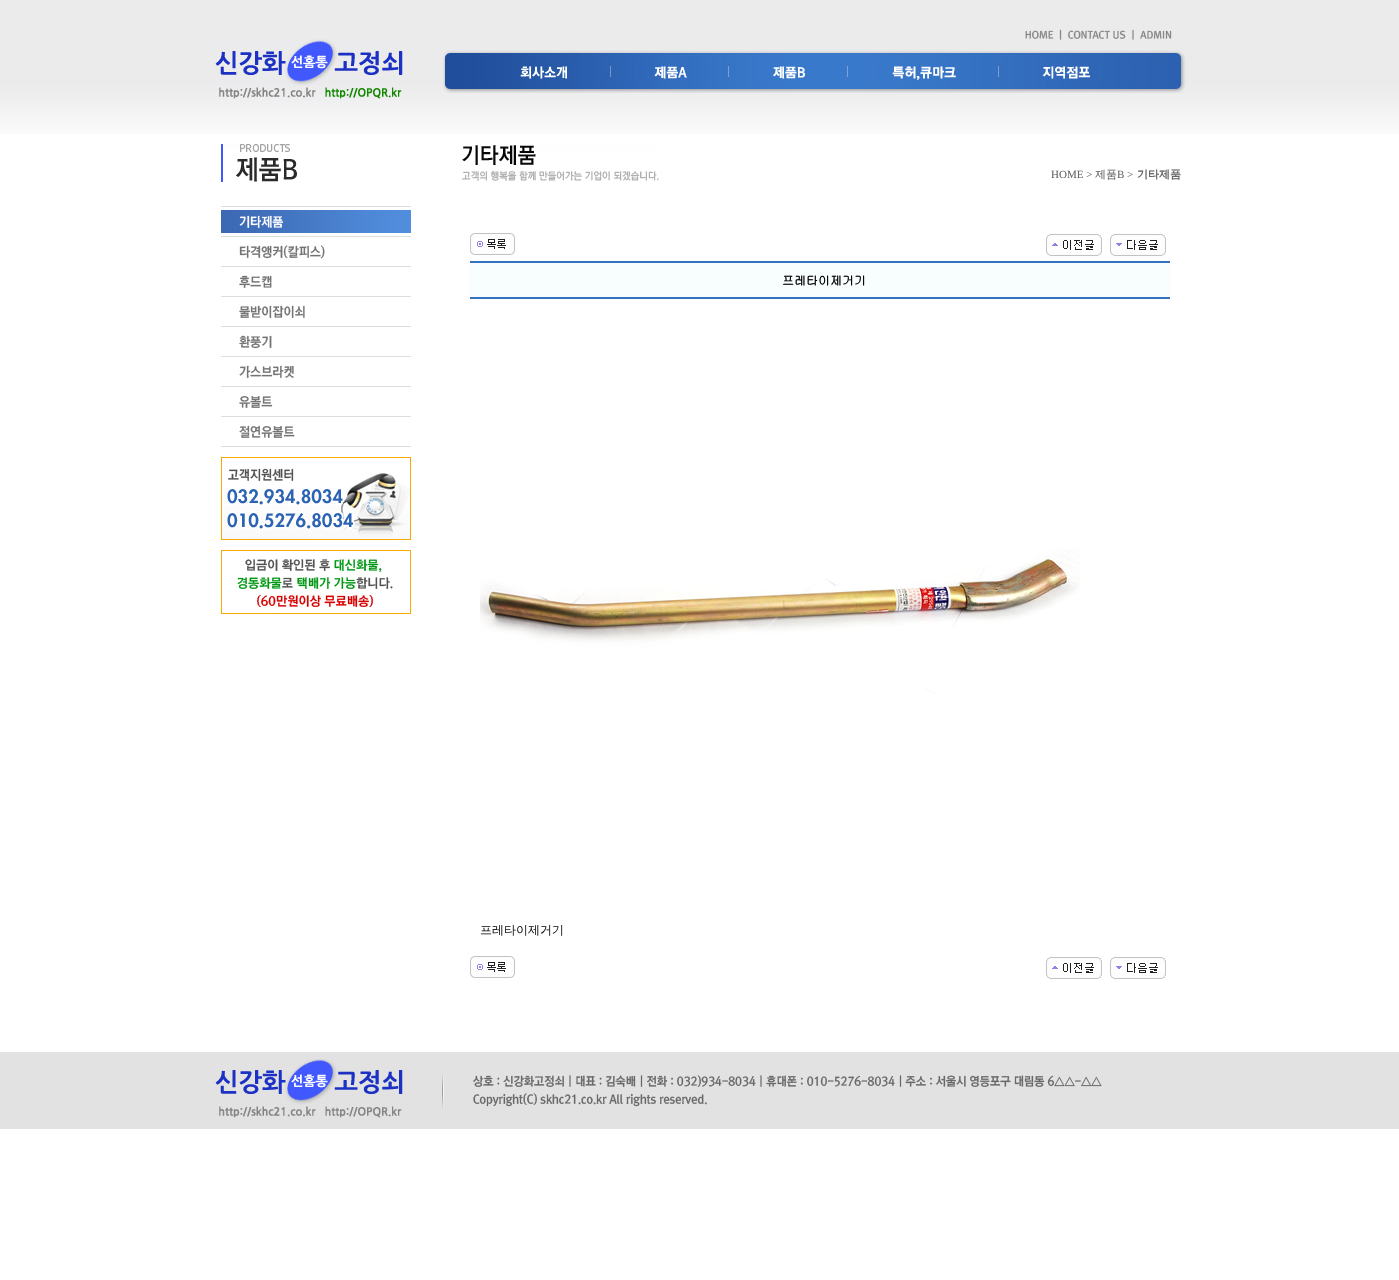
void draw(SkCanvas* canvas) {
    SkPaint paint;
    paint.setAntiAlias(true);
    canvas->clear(0xFFFFFFFF);
    canvas->drawImageRect(SkImages::DeferredFromEncodedData(SkData::MakeFromFileName("img1.png")), SkRect::MakeXYWH(0, 0, 1399, 134), SkSamplingOptions());
    canvas->drawImageRect(SkImages::DeferredFromEncodedData(SkData::MakeFromFileName("img2.png")), SkRect::MakeXYWH(1025, 29, 37, 11), SkSamplingOptions());
    canvas->drawImageRect(SkImages::DeferredFromEncodedData(SkData::MakeFromFileName("img3.png")), SkRect::MakeXYWH(1068, 29, 66, 11), SkSamplingOptions());
    canvas->drawImageRect(SkImages::DeferredFromEncodedData(SkData::MakeFromFileName("img4.png")), SkRect::MakeXYWH(1140, 30, 32, 9), SkSamplingOptions());
    canvas->drawImageRect(SkImages::DeferredFromEncodedData(SkData::MakeFromFileName("img5.png")), SkRect::MakeXYWH(215, 39, 188, 65), SkSamplingOptions());
    canvas->drawImageRect(SkImages::DeferredFromEncodedData(SkData::MakeFromFileName("img6.png")), SkRect::MakeXYWH(443, 50, 168, 43), SkSamplingOptions());
    canvas->drawImageRect(SkImages::DeferredFromEncodedData(SkData::MakeFromFileName("img7.png")), SkRect::MakeXYWH(611, 50, 118, 43), SkSamplingOptions());
    canvas->drawImageRect(SkImages::DeferredFromEncodedData(SkData::MakeFromFileName("img8.png")), SkRect::MakeXYWH(729, 50, 119, 43), SkSamplingOptions());
    canvas->drawImageRect(SkImages::DeferredFromEncodedData(SkData::MakeFromFileName("img9.png")), SkRect::MakeXYWH(848, 50, 151, 43), SkSamplingOptions());
    canvas->drawImageRect(SkImages::DeferredFromEncodedData(SkData::MakeFromFileName("img10.png")), SkRect::MakeXYWH(999, 50, 187, 43), SkSamplingOptions());
    canvas->drawImageRect(SkImages::DeferredFromEncodedData(SkData::MakeFromFileName("img11.png")), SkRect::MakeXYWH(221, 144, 76, 38), SkSamplingOptions());
    paint.setColor(0xFFDDDDDD);
    canvas->drawRect(SkRect::MakeXYWH(221, 206, 190, 1), paint);
    canvas->drawImageRect(SkImages::DeferredFromEncodedData(SkData::MakeFromFileName("img12.png")), SkRect::MakeXYWH(221, 210, 190, 23), SkSamplingOptions());
    canvas->drawRect(SkRect::MakeXYWH(221, 236, 190, 1), paint);
    canvas->drawImageRect(SkImages::DeferredFromEncodedData(SkData::MakeFromFileName("img13.png")), SkRect::MakeXYWH(239, 245, 86, 14), SkSamplingOptions());
    canvas->drawRect(SkRect::MakeXYWH(221, 266, 190, 1), paint);
    canvas->drawImageRect(SkImages::DeferredFromEncodedData(SkData::MakeFromFileName("img14.png")), SkRect::MakeXYWH(239, 275, 33, 13), SkSamplingOptions());
    canvas->drawRect(SkRect::MakeXYWH(221, 296, 190, 1), paint);
    canvas->drawImageRect(SkImages::DeferredFromEncodedData(SkData::MakeFromFileName("img15.png")), SkRect::MakeXYWH(239, 305, 66, 13), SkSamplingOptions());
    canvas->drawRect(SkRect::MakeXYWH(221, 326, 190, 1), paint);
    canvas->drawImageRect(SkImages::DeferredFromEncodedData(SkData::MakeFromFileName("img16.png")), SkRect::MakeXYWH(239, 335, 33, 14), SkSamplingOptions());
    canvas->drawRect(SkRect::MakeXYWH(221, 356, 190, 1), paint);
    canvas->drawImageRect(SkImages::DeferredFromEncodedData(SkData::MakeFromFileName("img17.png")), SkRect::MakeXYWH(239, 365, 55, 13), SkSamplingOptions());
    canvas->drawRect(SkRect::MakeXYWH(221, 386, 190, 1), paint);
    canvas->drawImageRect(SkImages::DeferredFromEncodedData(SkData::MakeFromFileName("img18.png")), SkRect::MakeXYWH(239, 396, 34, 12), SkSamplingOptions());
    canvas->drawRect(SkRect::MakeXYWH(221, 416, 190, 1), paint);
    canvas->drawImageRect(SkImages::DeferredFromEncodedData(SkData::MakeFromFileName("img19.png")), SkRect::MakeXYWH(239, 425, 56, 13), SkSamplingOptions());
    canvas->drawRect(SkRect::MakeXYWH(221, 446, 190, 1), paint);
    canvas->drawImageRect(SkImages::DeferredFromEncodedData(SkData::MakeFromFileName("img20.png")), SkRect::MakeXYWH(221, 457, 190, 157), SkSamplingOptions());
    canvas->drawImageRect(SkImages::DeferredFromEncodedData(SkData::MakeFromFileName("img21.png")), SkRect::MakeXYWH(462, 145, 197, 36), SkSamplingOptions());
    SkFont font1(fontMgr->matchFamilyStyle("Liberation Serif", SkFontStyle::Normal()), 11);
    font1.setSubpixel(true);
    paint.setColor(0xFF666666);
    canvas->drawString("HOME >", 1051, 178, font1, paint);
    SkFont font2(fontMgr->matchFamilyStyle("WenQuanYi Zen Hei", SkFontStyle(500, SkFontStyle::kNormal_Width, SkFontStyle::kUpright_Slant)), 11);
    font2.setSubpixel(true);
    canvas->drawString("제품", 1095, 178, font2, paint);
    canvas->drawString("B >", 1117, 178, font1, paint);
    SkFont font3(fontMgr->matchFamilyStyle("WenQuanYi Zen Hei", SkFontStyle::Bold()), 11);
    font3.setSubpixel(true);
    canvas->drawString("기타제품", 1137, 178, font3, paint);
    canvas->drawImageRect(SkImages::DeferredFromEncodedData(SkData::MakeFromFileName("img22.png")), SkRect::MakeXYWH(470, 233, 45, 22), SkSamplingOptions());
    canvas->drawImageRect(SkImages::DeferredFromEncodedData(SkData::MakeFromFileName("img23.png")), SkRect::MakeXYWH(1046, 234, 56, 22), SkSamplingOptions());
    canvas->drawImageRect(SkImages::DeferredFromEncodedData(SkData::MakeFromFileName("img24.png")), SkRect::MakeXYWH(1110, 234, 56, 22), SkSamplingOptions());
    paint.setColor(0xFF3571C2);
    canvas->drawRect(SkRect::MakeXYWH(470, 261, 700, 2), paint);
    paint.setColor(0xFFF8FDFE);
    canvas->drawRect(SkRect::MakeXYWH(470, 263, 700, 34), paint);
    SkFont font4(fontMgr->matchFamilyStyle("Gulim", SkFontStyle::Bold()), 12);
    font4.setSubpixel(true);
    paint.setColor(0xFF000000);
    canvas->drawString("프레타이제거기", 782, 285, font4, paint);
    paint.setColor(0xFF3571C2);
    canvas->drawRect(SkRect::MakeXYWH(470, 297, 700, 2), paint);
    canvas->drawImageRect(SkImages::DeferredFromEncodedData(SkData::MakeFromFileName("img25.png")), SkRect::MakeXYWH(480, 549, 600, 144), SkSamplingOptions());
    SkFont font5(fontMgr->matchFamilyStyle("WenQuanYi Zen Hei", SkFontStyle(500, SkFontStyle::kNormal_Width, SkFontStyle::kUpright_Slant)), 12);
    font5.setSubpixel(true);
    paint.setColor(0xFF222222);
    canvas->drawString("프레타이제거기", 480, 934, font5, paint);
    canvas->drawImageRect(SkImages::DeferredFromEncodedData(SkData::MakeFromFileName("img22.png")), SkRect::MakeXYWH(470, 956, 45, 22), SkSamplingOptions());
    canvas->drawImageRect(SkImages::DeferredFromEncodedData(SkData::MakeFromFileName("img23.png")), SkRect::MakeXYWH(1046, 957, 56, 22), SkSamplingOptions());
    canvas->drawImageRect(SkImages::DeferredFromEncodedData(SkData::MakeFromFileName("img24.png")), SkRect::MakeXYWH(1110, 957, 56, 22), SkSamplingOptions());
    paint.setColor(0xFFE2E2E2);
    canvas->drawRect(SkRect::MakeXYWH(0, 1052, 1399, 77), paint);
    canvas->drawImageRect(SkImages::DeferredFromEncodedData(SkData::MakeFromFileName("img26.png")), SkRect::MakeXYWH(213, 1059, 889, 59), SkSamplingOptions());
}
